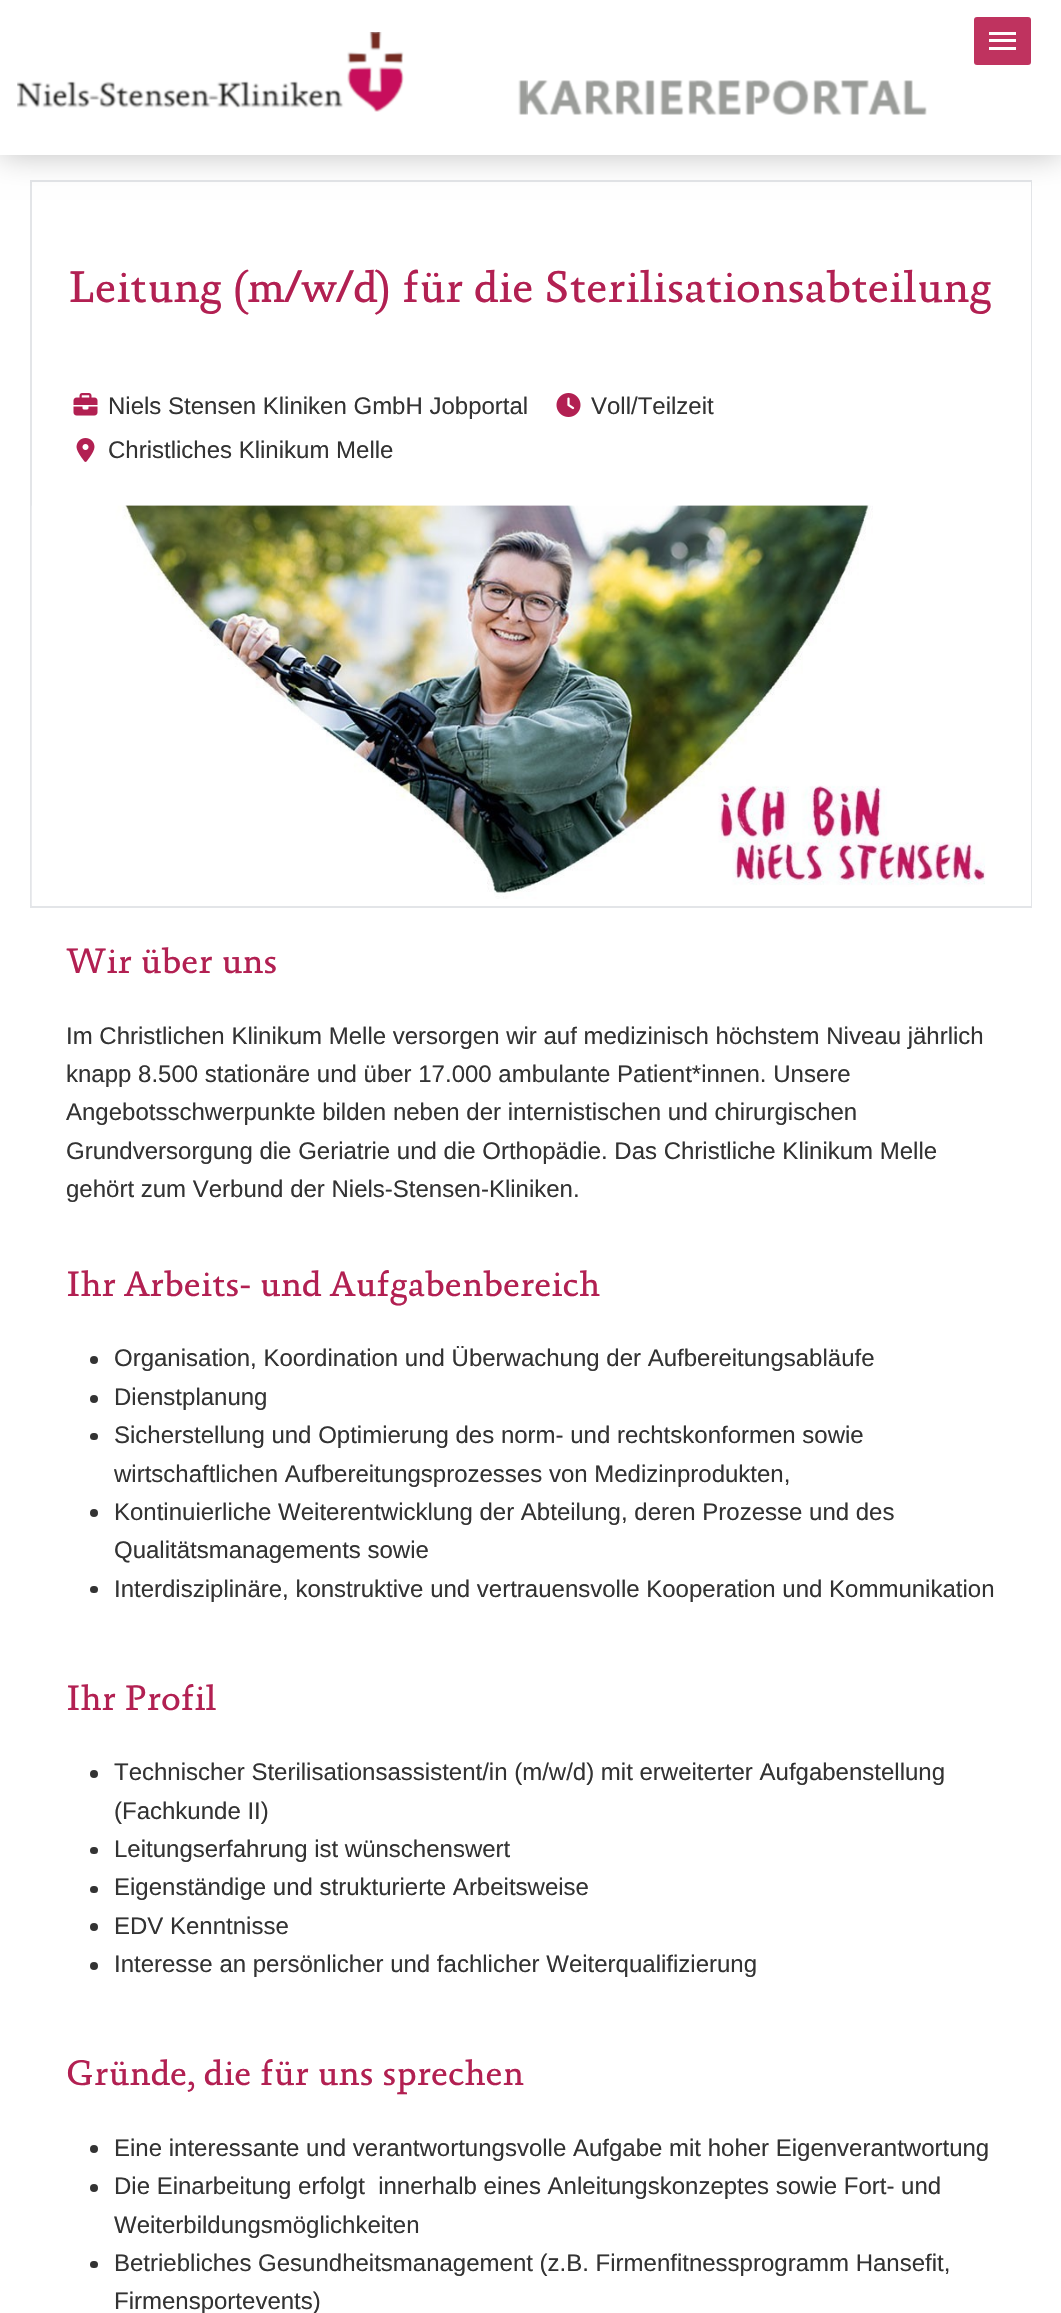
void draw(SkCanvas* canvas) {
    SkPaint paint;
    paint.setAntiAlias(true);
    canvas->clear(0xFFFFFFFF);
    paint.setStyle(SkPaint::kStroke_Style);
    paint.setStrokeWidth(2);
    paint.setColor(0xFFE3E5E8);
    canvas->drawRect(SkRect::MakeXYWH(31, 181, 1000, 726), paint);
    paint.setStyle(SkPaint::kFill_Style);
    paint.setColor(0xFFFFFFFF);
    canvas->drawRect(SkRect::MakeXYWH(1030, 182, 1, 724), paint);
    paint.setColor(0x40000000);
    paint.setMaskFilter(SkMaskFilter::MakeBlur(kNormal_SkBlurStyle, 15));
    canvas->drawRect(SkRect::MakeXYWH(0, 0, 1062, 155), paint);
    paint.setMaskFilter(nullptr);
    paint.setColor(0xFFFFFFFF);
    canvas->drawRect(SkRect::MakeXYWH(0, 0, 1061, 155), paint);
    canvas->drawImageRect(SkImages::DeferredFromEncodedData(SkData::MakeFromFileName("img1.png")), SkRect::MakeXYWH(17, 32, 387, 80), SkSamplingOptions());
    canvas->drawImageRect(SkImages::DeferredFromEncodedData(SkData::MakeFromFileName("img2.png")), SkRect::MakeXYWH(518, 80, 409, 35), SkSamplingOptions());
    paint.setColor(0xFFBF335F);
    canvas->drawRoundRect(SkRect::MakeXYWH(974, 17, 57, 48), 3, 3, paint);
    paint.setColor(0xFFFFFFFF);
    canvas->drawRect(SkRect::MakeXYWH(989, 32, 27, 3), paint);
    canvas->drawRect(SkRect::MakeXYWH(989, 39, 27, 3), paint);
    canvas->drawRect(SkRect::MakeXYWH(989, 47, 27, 3), paint);
    SkFont font1(fontMgr->matchFamilyStyle("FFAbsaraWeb", SkFontStyle::Normal()), 45);
    font1.setSubpixel(true);
    paint.setColor(0xFFB22052);
    canvas->drawString("Leitung (m/w/d) für die Sterilisationsabteilung", 68, 302, font1, paint);
    canvas->drawImageRect(SkImages::DeferredFromEncodedData(SkData::MakeFromFileName("img3.png")), SkRect::MakeXYWH(73, 393, 25, 23), SkSamplingOptions());
    SkFont font2(fontMgr->matchFamilyStyle("Liberation Sans", SkFontStyle::Normal()), 24);
    font2.setSubpixel(true);
    paint.setColor(0xFF333333);
    canvas->drawString("Niels Stensen Kliniken GmbH Jobportal", 108, 414, font2, paint);
    canvas->drawImageRect(SkImages::DeferredFromEncodedData(SkData::MakeFromFileName("img4.png")), SkRect::MakeXYWH(76, 438, 19, 24), SkSamplingOptions());
    canvas->drawString("Christliches Klinikum Melle", 108, 458, font2, paint);
    canvas->drawImageRect(SkImages::DeferredFromEncodedData(SkData::MakeFromFileName("img5.png")), SkRect::MakeXYWH(556, 393, 25, 24), SkSamplingOptions());
    canvas->drawString("Voll/Teilzeit", 591, 414, font2, paint);
    canvas->drawImageRect(SkImages::DeferredFromEncodedData(SkData::MakeFromFileName("img6.png")), SkRect::MakeXYWH(31, 505, 955, 401), SkSamplingOptions());
    SkFont font3(fontMgr->matchFamilyStyle("FFAbsaraWeb", SkFontStyle::Normal()), 36);
    font3.setSubpixel(true);
    paint.setColor(0xFFB22052);
    canvas->drawString("Wir über uns", 66, 973, font3, paint);
    paint.setColor(0xFF333333);
    canvas->drawString("Im Christlichen Klinikum Melle versorgen wir auf medizinisch höchstem Niveau jährlich", 66, 1044, font2, paint);
    canvas->drawString("knapp 8.500 stationäre und über 17.000 ambulante Patient*innen. Unsere", 66, 1082, font2, paint);
    canvas->drawString("Angebotsschwerpunkte bilden neben der internistischen und chirurgischen", 66, 1120, font2, paint);
    canvas->drawString("Grundversorgung die Geriatrie und die Orthopädie. Das Christliche Klinikum Melle", 66, 1159, font2, paint);
    canvas->drawString("gehört zum Verbund der Niels-Stensen-Kliniken.", 66, 1197, font2, paint);
    paint.setColor(0xFFB22052);
    canvas->drawString("Ihr Arbeits- und Aufgabenbereich", 66, 1296, font3, paint);
    paint.setColor(0xFF333333);
    canvas->drawCircle(94, 1360, 4, paint);
    canvas->drawString("Organisation, Koordination und Überwachung der Aufbereitungsabläufe", 114, 1366, font2, paint);
    canvas->drawCircle(94, 1399, 4, paint);
    canvas->drawString("Dienstplanung", 114, 1405, font2, paint);
    canvas->drawRoundRect(SkRect::MakeXYWH(90, 1433, 8, 7), 3.5f, 3.5f, paint);
    canvas->drawString("Sicherstellung und Optimierung des norm- und rechtskonformen sowie", 114, 1443, font2, paint);
    canvas->drawString("wirtschaftlichen Aufbereitungsprozesses von Medizinprodukten,", 114, 1482, font2, paint);
    canvas->drawCircle(94, 1513, 4, paint);
    canvas->drawString("Kontinuierliche Weiterentwicklung der Abteilung, deren Prozesse und des", 114, 1520, font2, paint);
    canvas->drawString("Qualitätsmanagements sowie", 114, 1558, font2, paint);
    canvas->drawRoundRect(SkRect::MakeXYWH(90, 1586, 8, 7), 3.5f, 3.5f, paint);
    canvas->drawString("Interdisziplinäre, konstruktive und vertrauensvolle Kooperation und Kommunikation", 114, 1597, font2, paint);
    paint.setColor(0xFFB22052);
    canvas->drawString("Ihr Profil", 66, 1710, font3, paint);
    paint.setColor(0xFF333333);
    canvas->drawCircle(94, 1774, 4, paint);
    canvas->drawString("Technischer Sterilisationsassistent/in (m/w/d) mit erweiterter Aufgabenstellung", 114, 1780, font2, paint);
    canvas->drawString("(Fachkunde II)", 114, 1819, font2, paint);
    canvas->drawRoundRect(SkRect::MakeXYWH(90, 1847, 8, 7), 3.5f, 3.5f, paint);
    canvas->drawString("Leitungserfahrung ist wünschenswert", 114, 1857, font2, paint);
    canvas->drawRoundRect(SkRect::MakeXYWH(90, 1886, 8, 7), 3.5f, 3.5f, paint);
    canvas->drawString("Eigenständige und strukturierte Arbeitsweise", 114, 1895, font2, paint);
    canvas->drawCircle(94, 1927, 4, paint);
    canvas->drawString("EDV Kenntnisse", 114, 1934, font2, paint);
    canvas->drawCircle(94, 1966, 4, paint);
    canvas->drawString("Interesse an persönlicher und fachlicher Weiterqualifizierung", 114, 1972, font2, paint);
    paint.setColor(0xFFB22052);
    canvas->drawString("Gründe, die für uns sprechen", 66, 2085, font3, paint);
    paint.setColor(0xFF333333);
    canvas->drawCircle(94, 2149, 4, paint);
    canvas->drawString("Eine interessante und verantwortungsvolle Aufgabe mit hoher Eigenverantwortung", 114, 2156, font2, paint);
    canvas->drawCircle(94, 2188, 4, paint);
    canvas->drawString("Die Einarbeitung erfolgt  innerhalb eines Anleitungskonzeptes sowie Fort- und", 114, 2194, font2, paint);
    canvas->drawString("Weiterbildungsmöglichkeiten", 114, 2233, font2, paint);
    canvas->drawRoundRect(SkRect::MakeXYWH(90, 2261, 8, 7), 3.5f, 3.5f, paint);
    canvas->drawString("Betriebliches Gesundheitsmanagement (z.B. Firmenfitnessprogramm Hansefit,", 114, 2271, font2, paint);
    canvas->drawString("Firmensportevents)", 114, 2309, font2, paint);
}
